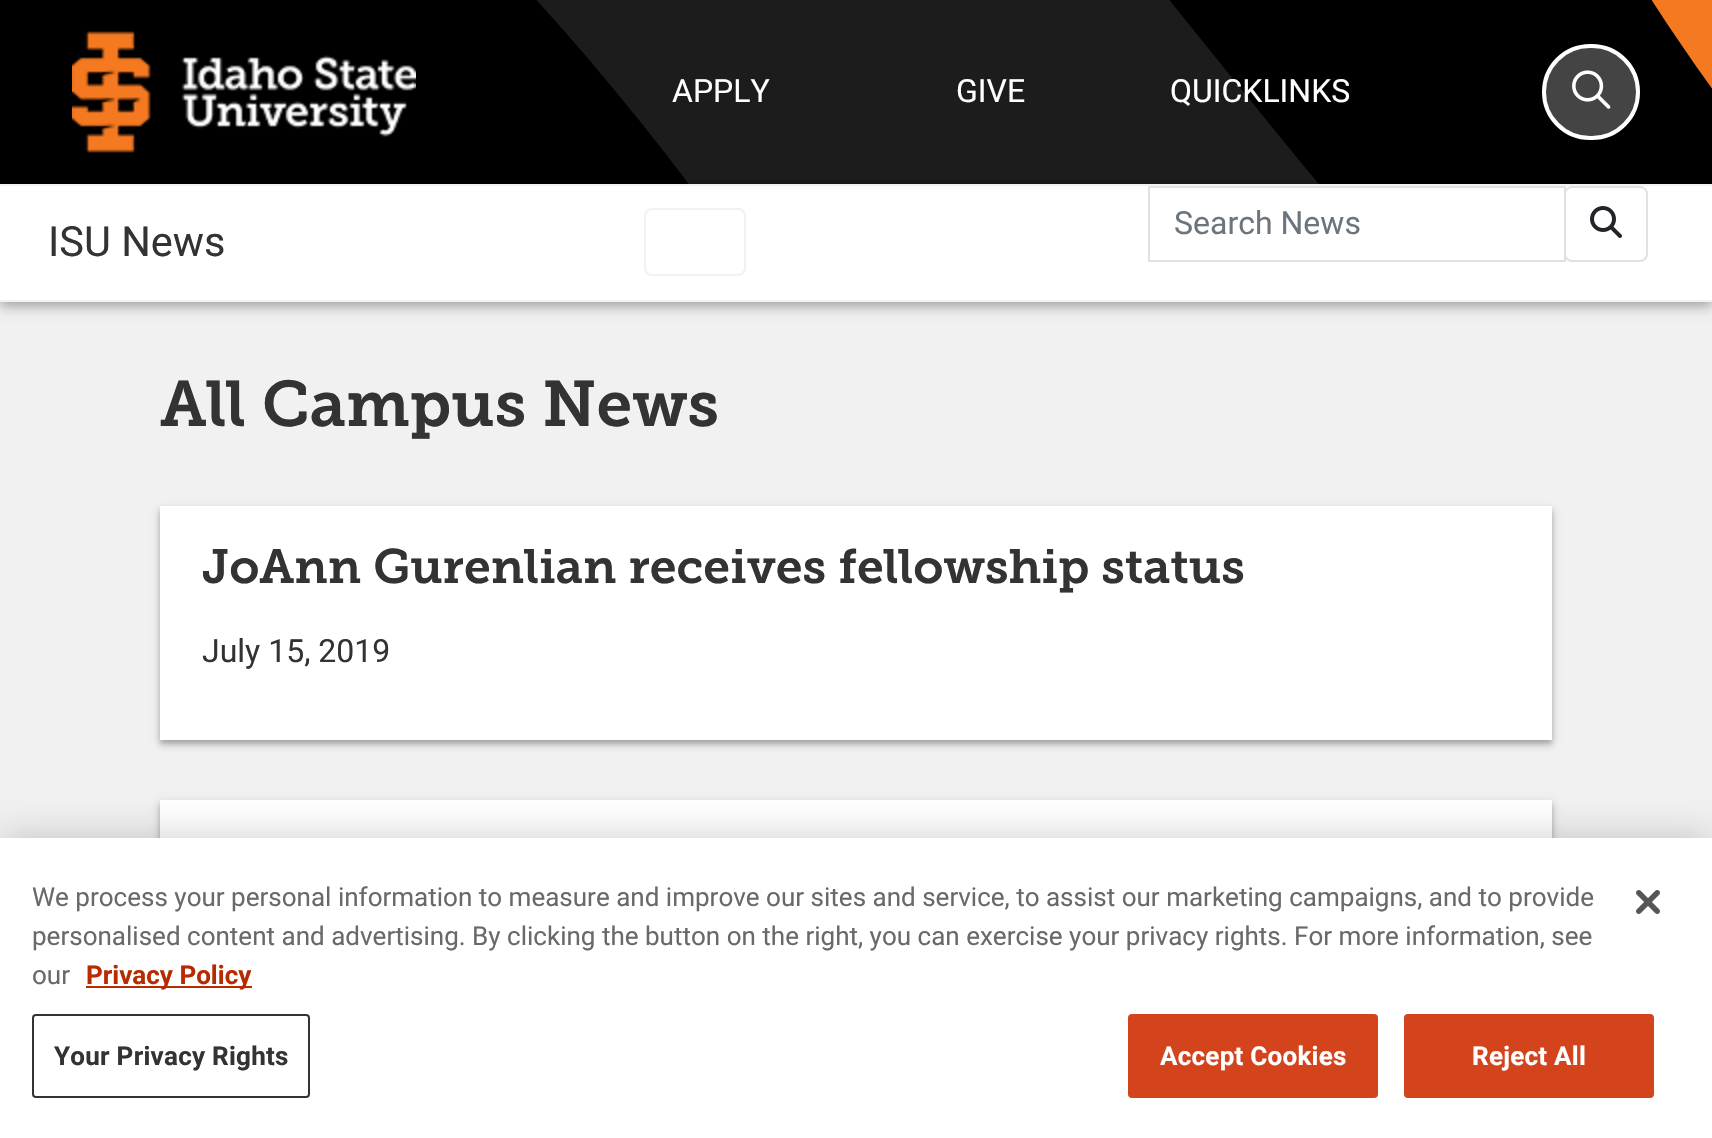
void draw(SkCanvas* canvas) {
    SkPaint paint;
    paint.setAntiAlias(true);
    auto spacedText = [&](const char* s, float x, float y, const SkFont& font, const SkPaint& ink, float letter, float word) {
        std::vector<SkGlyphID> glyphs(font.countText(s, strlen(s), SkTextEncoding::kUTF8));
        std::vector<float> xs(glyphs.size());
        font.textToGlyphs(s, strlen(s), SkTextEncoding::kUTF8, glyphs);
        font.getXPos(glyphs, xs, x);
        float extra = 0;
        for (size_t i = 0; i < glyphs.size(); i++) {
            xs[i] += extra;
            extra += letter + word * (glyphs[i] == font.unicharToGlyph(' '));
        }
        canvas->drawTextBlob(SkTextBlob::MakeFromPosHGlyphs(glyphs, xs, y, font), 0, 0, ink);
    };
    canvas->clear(0xFFF1F1F1);
    canvas->drawImageRect(SkImages::DeferredFromEncodedData(SkData::MakeFromFileName("img1.png")), SkRect::MakeXYWH(0, 0, 1712, 184), SkSamplingOptions());
    canvas->drawImageRect(SkImages::DeferredFromEncodedData(SkData::MakeFromFileName("img2.png")), SkRect::MakeXYWH(72, 31, 344, 122), SkSamplingOptions());
    SkFont font1(fontMgr->matchFamilyStyle("Roboto", SkFontStyle::Normal()), 32);
    font1.setSubpixel(true);
    paint.setColor(0xFFFFFFFF);
    canvas->drawString("APPLY", 672, 102, font1, paint);
    canvas->drawString("GIVE", 956, 102, font1, paint);
    canvas->drawString("QUICKLINKS", 1170, 102, font1, paint);
    paint.setColor(0xFF444444);
    canvas->drawRoundRect(SkRect::MakeXYWH(1544, 46, 94, 92), 46, 46, paint);
    paint.setStyle(SkPaint::kStroke_Style);
    paint.setStrokeWidth(4);
    paint.setColor(0xFFFFFFFF);
    canvas->drawRoundRect(SkRect::MakeXYWH(1544, 46, 94, 92), 46, 46, paint);
    canvas->drawImageRect(SkImages::DeferredFromEncodedData(SkData::MakeFromFileName("img3.png")), SkRect::MakeXYWH(1572, 70, 39, 39), SkSamplingOptions());
    paint.setStyle(SkPaint::kFill_Style);
    paint.setColor(0x3D000000);
    paint.setMaskFilter(SkMaskFilter::MakeBlur(kNormal_SkBlurStyle, 6));
    canvas->drawRect(SkRect::MakeXYWH(0, 188, 1712, 118), paint);
    paint.setMaskFilter(nullptr);
    paint.setColor(0x1F000000);
    paint.setMaskFilter(SkMaskFilter::MakeBlur(kNormal_SkBlurStyle, 6));
    canvas->drawRect(SkRect::MakeXYWH(0, 188, 1712, 118), paint);
    paint.setMaskFilter(nullptr);
    paint.setColor(0xFFFFFFFF);
    canvas->drawRect(SkRect::MakeXYWH(0, 186, 1712, 114), paint);
    paint.setColor(0xFFF1F1F1);
    canvas->drawRect(SkRect::MakeXYWH(0, 184, 1712, 2), paint);
    canvas->drawRect(SkRect::MakeXYWH(0, 300, 1712, 2), paint);
    paint.setStyle(SkPaint::kStroke_Style);
    paint.setStrokeWidth(2);
    canvas->drawRoundRect(SkRect::MakeXYWH(645, 209, 100, 66), 7, 7, paint);
    paint.setColor(0xFFDEE2E6);
    canvas->drawRect(SkRect::MakeXYWH(1149, 187, 416, 74), paint);
    paint.setStyle(SkPaint::kFill_Style);
    paint.setColor(0xFF6C757D);
    canvas->drawString("Search News", 1174, 234, font1, paint);
    paint.setStyle(SkPaint::kStroke_Style);
    paint.setColor(0xFFDEE2E6);
    canvas->drawRoundRect(SkRect::MakeXYWH(1565, 187, 82, 74), 7, 7, paint);
    canvas->drawImageRect(SkImages::DeferredFromEncodedData(SkData::MakeFromFileName("img4.png")), SkRect::MakeXYWH(1590, 206, 32, 32), SkSamplingOptions());
    SkFont font2(fontMgr->matchFamilyStyle("Roboto", SkFontStyle::Normal()), 41.5f);
    font2.setSubpixel(true);
    paint.setStyle(SkPaint::kFill_Style);
    paint.setColor(0xFF333333);
    canvas->drawString("ISU News", 48, 256, font2, paint);
    SkFont font3(fontMgr->matchFamilyStyle("Museo Slab", SkFontStyle(600, SkFontStyle::kNormal_Width, SkFontStyle::kUpright_Slant)), 64);
    font3.setSubpixel(true);
    canvas->drawString("All Campus News", 160, 426, font3, paint);
    paint.setColor(0x3D000000);
    paint.setMaskFilter(SkMaskFilter::MakeBlur(kNormal_SkBlurStyle, 4));
    canvas->drawRect(SkRect::MakeXYWH(160, 510, 1392, 234), paint);
    paint.setMaskFilter(nullptr);
    paint.setColor(0x1F000000);
    paint.setMaskFilter(SkMaskFilter::MakeBlur(kNormal_SkBlurStyle, 2));
    canvas->drawRect(SkRect::MakeXYWH(160, 510, 1392, 234), paint);
    paint.setMaskFilter(nullptr);
    paint.setColor(0xFFFFFFFF);
    canvas->drawRect(SkRect::MakeXYWH(160, 506, 1392, 234), paint);
    SkFont font4(fontMgr->matchFamilyStyle("Museo Slab", SkFontStyle(600, SkFontStyle::kNormal_Width, SkFontStyle::kUpright_Slant)), 48);
    font4.setSubpixel(true);
    paint.setColor(0xFF333333);
    canvas->drawString("JoAnn Gurenlian receives fellowship status", 202, 583, font4, paint);
    canvas->drawString("July 15, 2019", 202, 662, font1, paint);
    paint.setColor(0x3D000000);
    paint.setMaskFilter(SkMaskFilter::MakeBlur(kNormal_SkBlurStyle, 4));
    canvas->drawRect(SkRect::MakeXYWH(160, 804, 1392, 234), paint);
    paint.setMaskFilter(nullptr);
    paint.setColor(0x1F000000);
    paint.setMaskFilter(SkMaskFilter::MakeBlur(kNormal_SkBlurStyle, 2));
    canvas->drawRect(SkRect::MakeXYWH(160, 804, 1392, 234), paint);
    paint.setMaskFilter(nullptr);
    paint.setColor(0xFFFFFFFF);
    canvas->drawRect(SkRect::MakeXYWH(160, 800, 1392, 38), paint);
    paint.setColor(0x33000000);
    paint.setMaskFilter(SkMaskFilter::MakeBlur(kNormal_SkBlurStyle, 18));
    canvas->drawRect(SkRect::MakeXYWH(0, 838, 1712, 300), paint);
    paint.setMaskFilter(nullptr);
    paint.setColor(0xFFFFFFFF);
    canvas->drawRect(SkRect::MakeXYWH(0, 838, 1712, 300), paint);
    SkFont font5(fontMgr->matchFamilyStyle("Roboto", SkFontStyle::Normal()), 26.02f);
    font5.setSubpixel(true);
    paint.setColor(0xFF696969);
    canvas->drawString("We process your personal information to measure and improve our sites and service, to assist our marketing campaigns, and to provide", 32, 906, font5, paint);
    canvas->drawString("personalised content and advertising. By clicking the button on the right, you can exercise your privacy rights. For more information, see", 32, 945, font5, paint);
    canvas->drawString("our", 32, 984, font5, paint);
    paint.setColor(0xFFB82B00);
    canvas->drawRect(SkRect::MakeXYWH(86, 986, 166, 2), paint);
    SkFont font6(fontMgr->matchFamilyStyle("Roboto", SkFontStyle::Bold()), 26.02f);
    font6.setSubpixel(true);
    canvas->drawString("Privacy Policy", 86, 984, font6, paint);
    paint.setStyle(SkPaint::kStroke_Style);
    paint.setColor(0xFF333333);
    canvas->drawRoundRect(SkRect::MakeXYWH(33, 1015, 276, 82), 3, 3, paint);
    paint.setStyle(SkPaint::kFill_Style);
    spacedText("Your Privacy Rights", 54, 1065, font6, paint, 0.25f, 0);
    paint.setColor(0xFFD4441C);
    canvas->drawRoundRect(SkRect::MakeXYWH(1129, 1015, 248, 82), 3, 3, paint);
    paint.setStyle(SkPaint::kStroke_Style);
    canvas->drawRoundRect(SkRect::MakeXYWH(1129, 1015, 248, 82), 3, 3, paint);
    paint.setStyle(SkPaint::kFill_Style);
    paint.setColor(0xFFFFFFFF);
    spacedText("Accept Cookies", 1160, 1065, font6, paint, 0.25f, 0);
    paint.setColor(0xFFD4441C);
    canvas->drawRoundRect(SkRect::MakeXYWH(1405, 1015, 248, 82), 3, 3, paint);
    paint.setStyle(SkPaint::kStroke_Style);
    canvas->drawRoundRect(SkRect::MakeXYWH(1405, 1015, 248, 82), 3, 3, paint);
    paint.setStyle(SkPaint::kFill_Style);
    paint.setColor(0xFFFFFFFF);
    spacedText("Reject All", 1472, 1065, font6, paint, 0.25f, 0);
    canvas->drawImageRect(SkImages::DeferredFromEncodedData(SkData::MakeFromFileName("img5.png")), SkRect::MakeXYWH(1636, 890, 24, 24), SkSamplingOptions());
}
